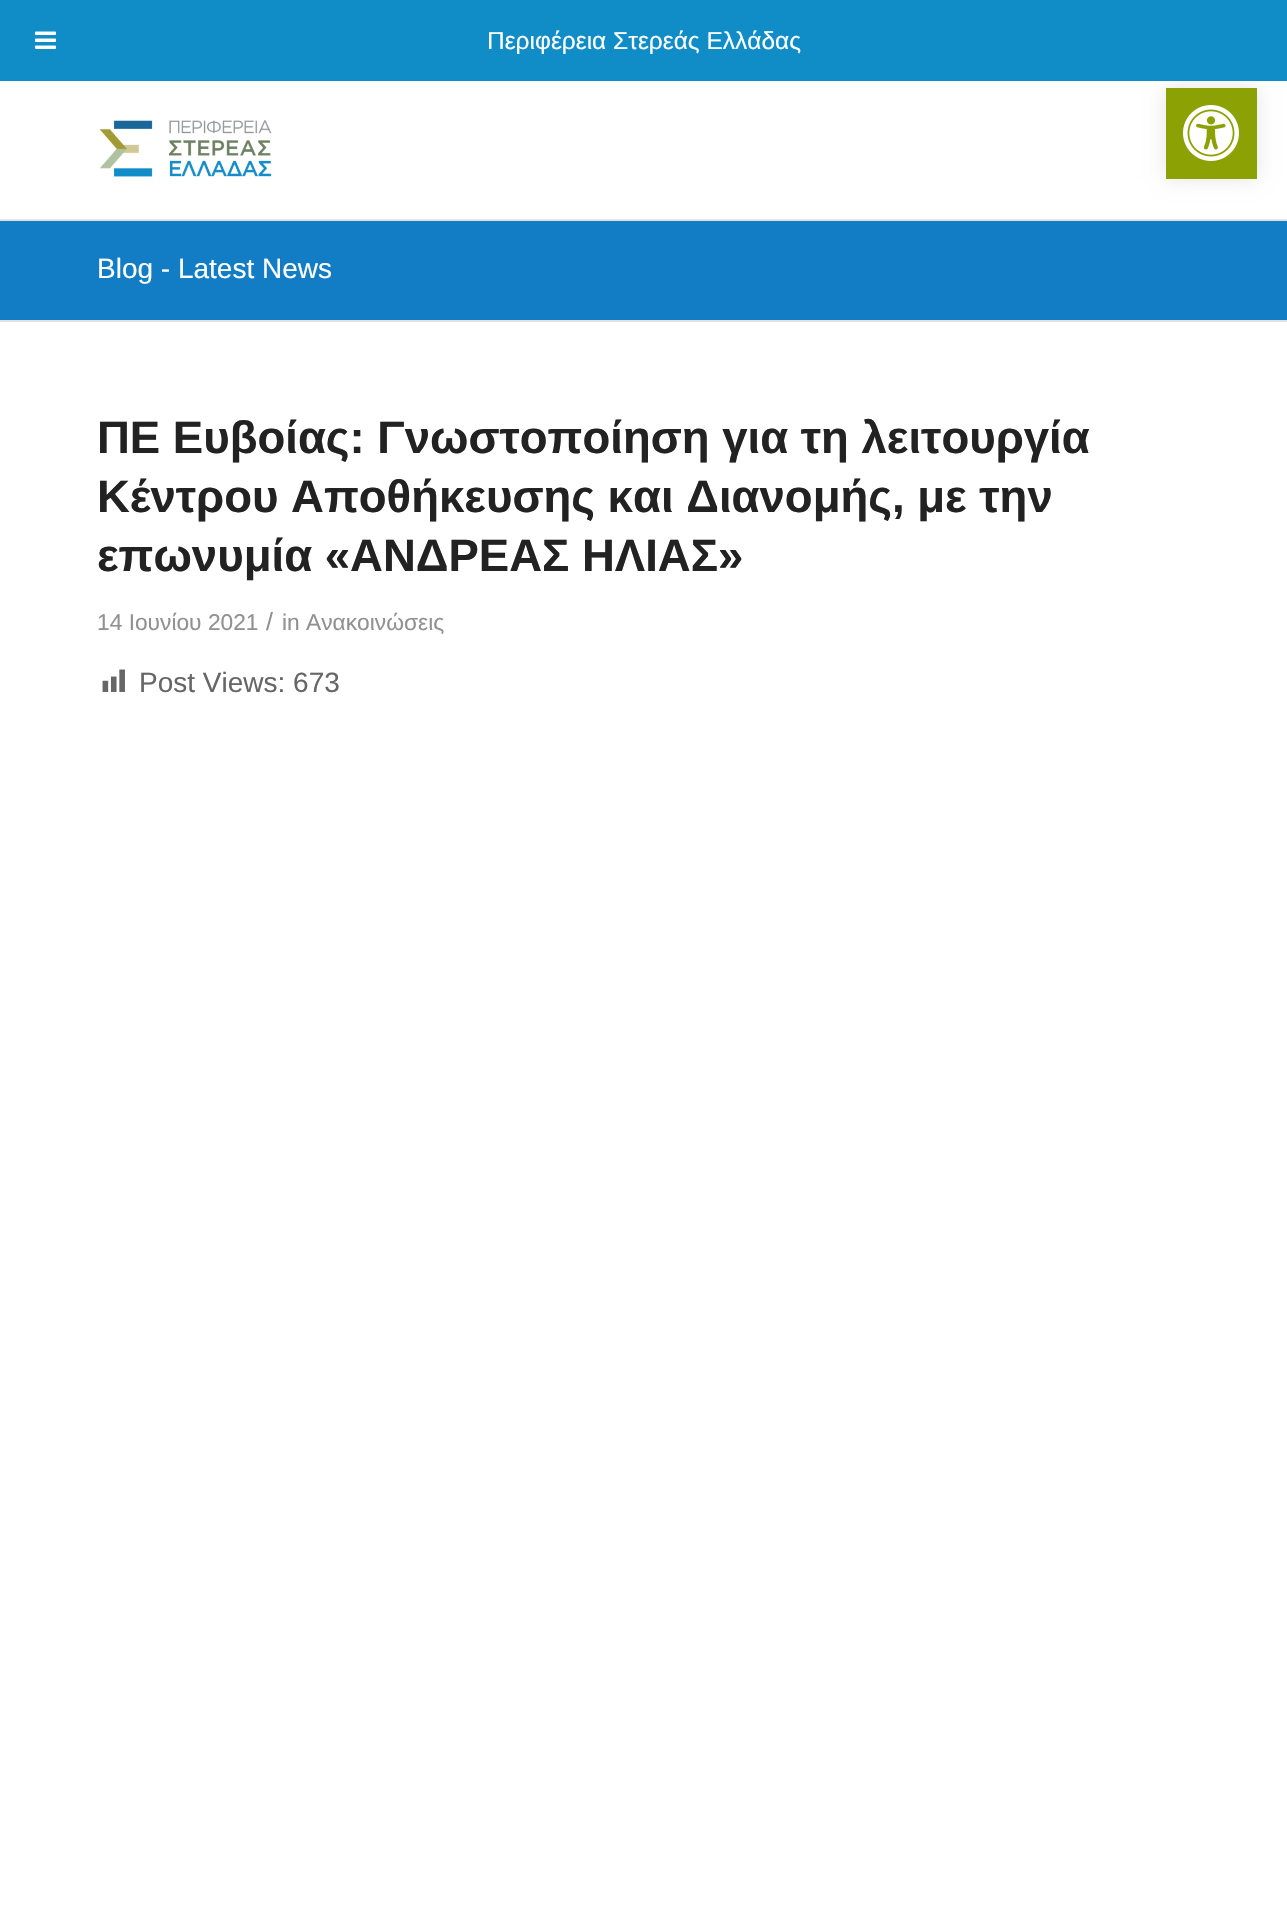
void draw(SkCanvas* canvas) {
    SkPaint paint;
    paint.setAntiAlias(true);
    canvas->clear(0xFFFFFFFF);
    paint.setColor(0x1A000000);
    paint.setMaskFilter(SkMaskFilter::MakeBlur(kNormal_SkBlurStyle, 9));
    canvas->drawRect(SkRect::MakeXYWH(1166, 88, 91, 91), paint);
    paint.setMaskFilter(nullptr);
    paint.setColor(0xFF108DC7);
    canvas->drawRect(SkRect::MakeXYWH(0, 0, 1287, 81), paint);
    canvas->drawImageRect(SkImages::DeferredFromEncodedData(SkData::MakeFromFileName("img1.png")), SkRect::MakeXYWH(35, 31, 21, 18), SkSamplingOptions());
    SkFont font1(fontMgr->matchFamilyStyle("Liberation Sans", SkFontStyle::Normal()), 24.5f);
    font1.setSubpixel(true);
    paint.setColor(0xFFFFFFFF);
    canvas->drawString("Περιφέρεια Στερεάς Ελλάδας", 487, 49, font1, paint);
    paint.setColor(0xFF8CA103);
    canvas->drawRect(SkRect::MakeXYWH(1166, 88, 91, 91), paint);
    canvas->drawImageRect(SkImages::DeferredFromEncodedData(SkData::MakeFromFileName("img2.png")), SkRect::MakeXYWH(1183, 105, 56, 56), SkSamplingOptions());
    paint.setColor(0xFFE1E1E1);
    canvas->drawRect(SkRect::MakeXYWH(0, 219, 1287, 2), paint);
    canvas->drawImageRect(SkImages::DeferredFromEncodedData(SkData::MakeFromFileName("img3.png")), SkRect::MakeXYWH(99, 120, 173, 57), SkSamplingOptions());
    paint.setColor(0xFF127DC4);
    canvas->drawRect(SkRect::MakeXYWH(0, 221, 1287, 99), paint);
    SkFont font2(fontMgr->matchFamilyStyle("Liberation Sans", SkFontStyle::Normal()), 28);
    font2.setSubpixel(true);
    paint.setColor(0xFFFFFFFF);
    canvas->drawString("Blog - Latest News", 97, 278, font2, paint);
    paint.setColor(0xFFE1E1E1);
    canvas->drawRect(SkRect::MakeXYWH(0, 320, 1287, 2), paint);
    SkFont font3(fontMgr->matchFamilyStyle("Liberation Sans", SkFontStyle::Bold()), 45.5f);
    font3.setSubpixel(true);
    paint.setColor(0xFF222222);
    canvas->drawString("ΠΕ Ευβοίας: Γνωστοποίηση για τη λειτουργία", 97, 453, font3, paint);
    canvas->drawString("Κέντρου Αποθήκευσης και Διανομής, με την", 97, 512, font3, paint);
    canvas->drawString("επωνυμία «ΑΝΔΡΕΑΣ ΗΛΙΑΣ»", 97, 571, font3, paint);
    SkFont font4(fontMgr->matchFamilyStyle("Liberation Sans", SkFontStyle::Normal()), 22.75f);
    font4.setSubpixel(true);
    paint.setColor(0xFF919191);
    canvas->drawString("14 Ιουνίου 2021", 97, 630, font4, paint);
    SkFont font5(fontMgr->matchFamilyStyle("Liberation Sans", SkFontStyle::Normal()), 25);
    font5.setSubpixel(true);
    canvas->drawString("/", 266, 630, font5, paint);
    canvas->drawString("in Ανακοινώσεις", 282, 630, font4, paint);
    canvas->drawImageRect(SkImages::DeferredFromEncodedData(SkData::MakeFromFileName("img4.png")), SkRect::MakeXYWH(102, 669, 23, 23), SkSamplingOptions());
    paint.setColor(0xFF666666);
    canvas->drawString("Post Views: 673", 139, 692, font2, paint);
}
